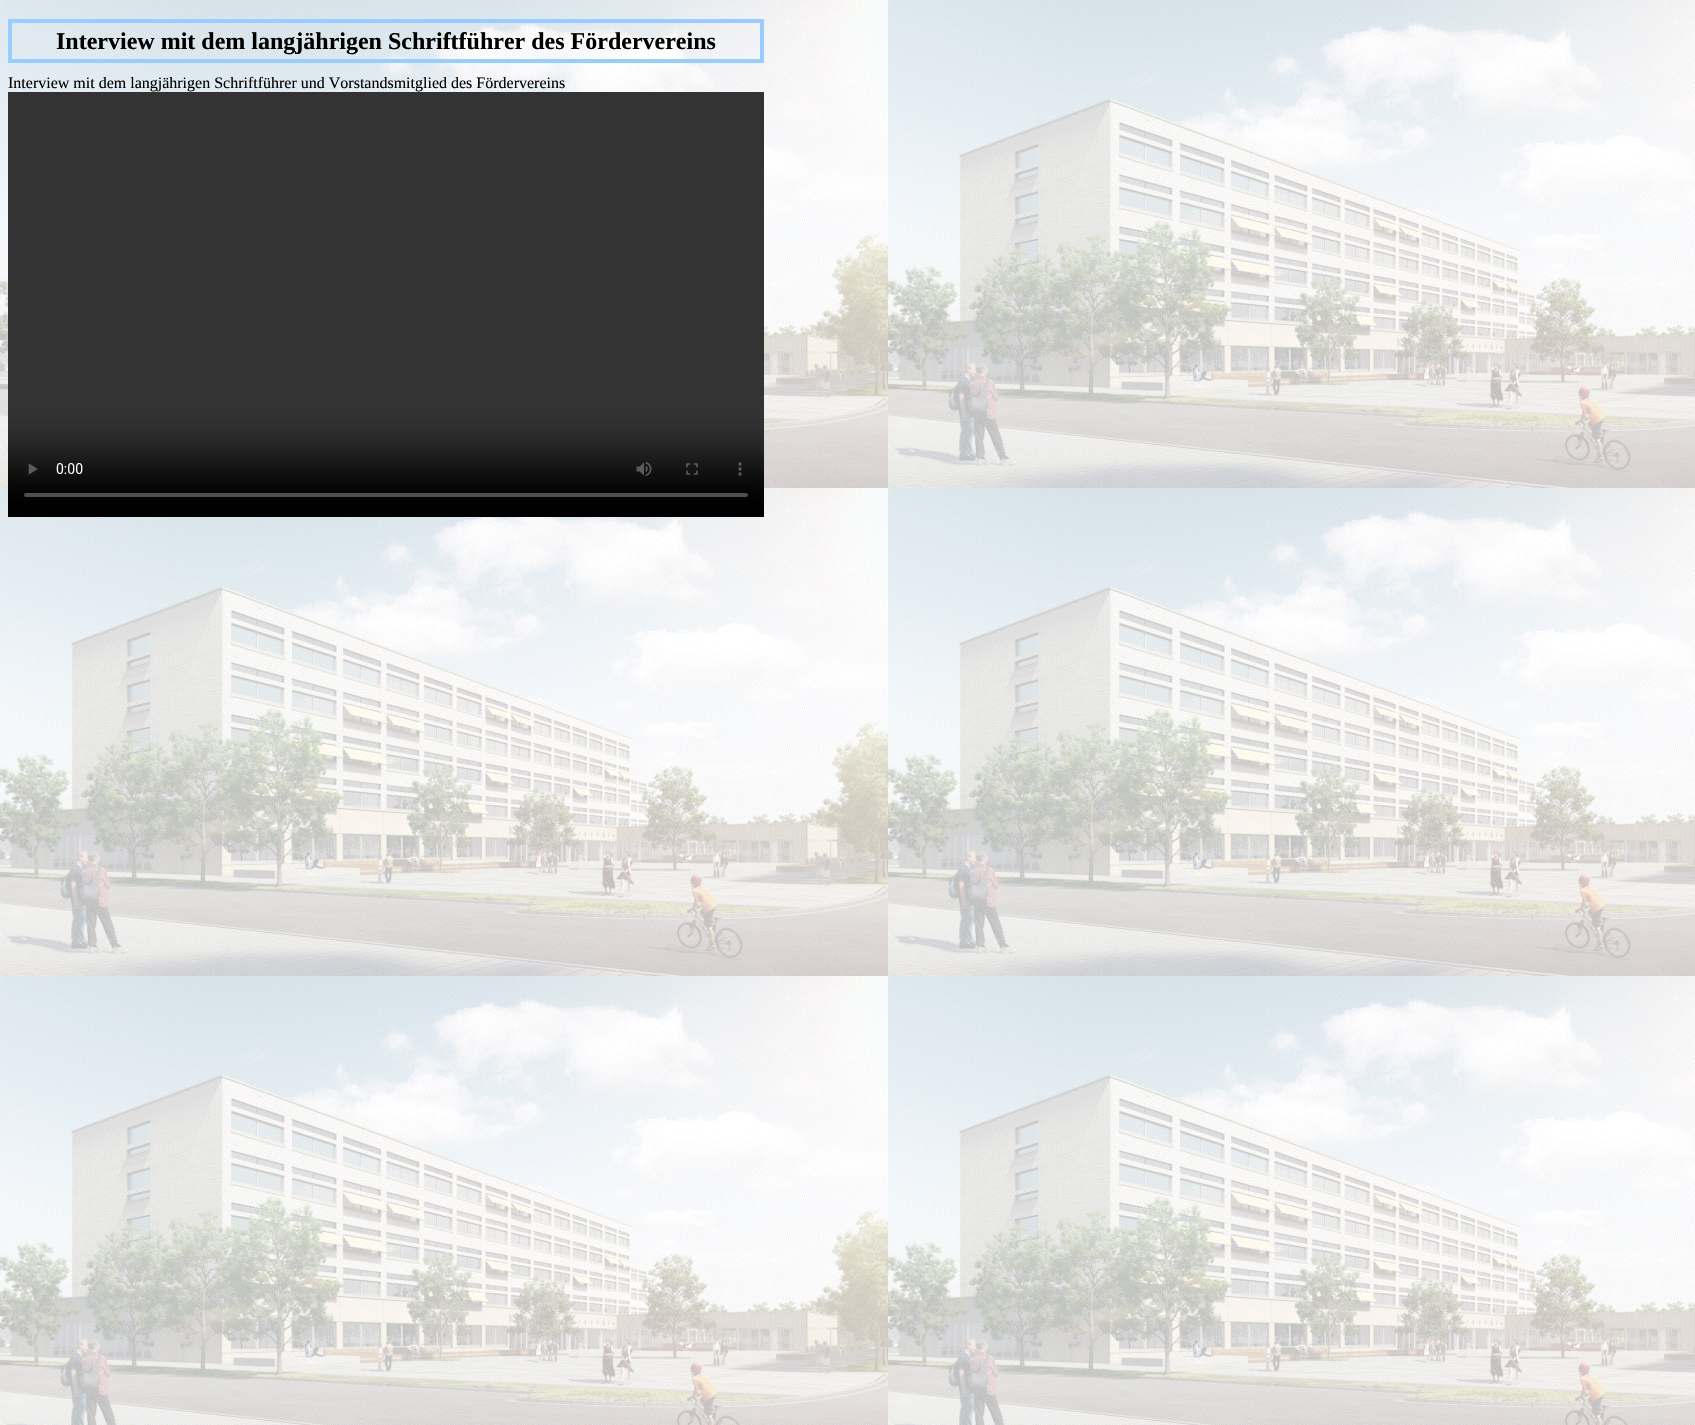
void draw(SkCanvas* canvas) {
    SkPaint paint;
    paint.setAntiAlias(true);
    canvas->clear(0xFFFFFFFF);
    canvas->drawImageRect(SkImages::DeferredFromEncodedData(SkData::MakeFromFileName("img1.png")), SkRect::MakeXYWH(0, 0, 1695, 1425), SkSamplingOptions());
    paint.setColor(0xFF99CCFF);
    canvas->drawRect(SkRect::MakeXYWH(8, 19, 756, 4), paint);
    canvas->drawRect(SkRect::MakeXYWH(760, 19, 4, 44), paint);
    canvas->drawRect(SkRect::MakeXYWH(8, 59, 756, 4), paint);
    canvas->drawRect(SkRect::MakeXYWH(8, 19, 4, 44), paint);
    SkFont font1(fontMgr->matchFamilyStyle("Liberation Serif", SkFontStyle::Bold()), 24);
    font1.setSubpixel(true);
    paint.setColor(0xFF000000);
    canvas->drawString("Interview mit dem langjährigen Schriftführer des Fördervereins", 56, 49, font1, paint);
    SkFont font2(fontMgr->matchFamilyStyle("Liberation Serif", SkFontStyle::Normal()), 16);
    font2.setSubpixel(true);
    canvas->drawString("Interview mit dem langjährigen Schriftführer und Vorstandsmitglied des Fördervereins", 8, 88, font2, paint);
    canvas->drawImageRect(SkImages::DeferredFromEncodedData(SkData::MakeFromFileName("img2.png")), SkRect::MakeXYWH(8, 92, 756, 425), SkSamplingOptions());
}
